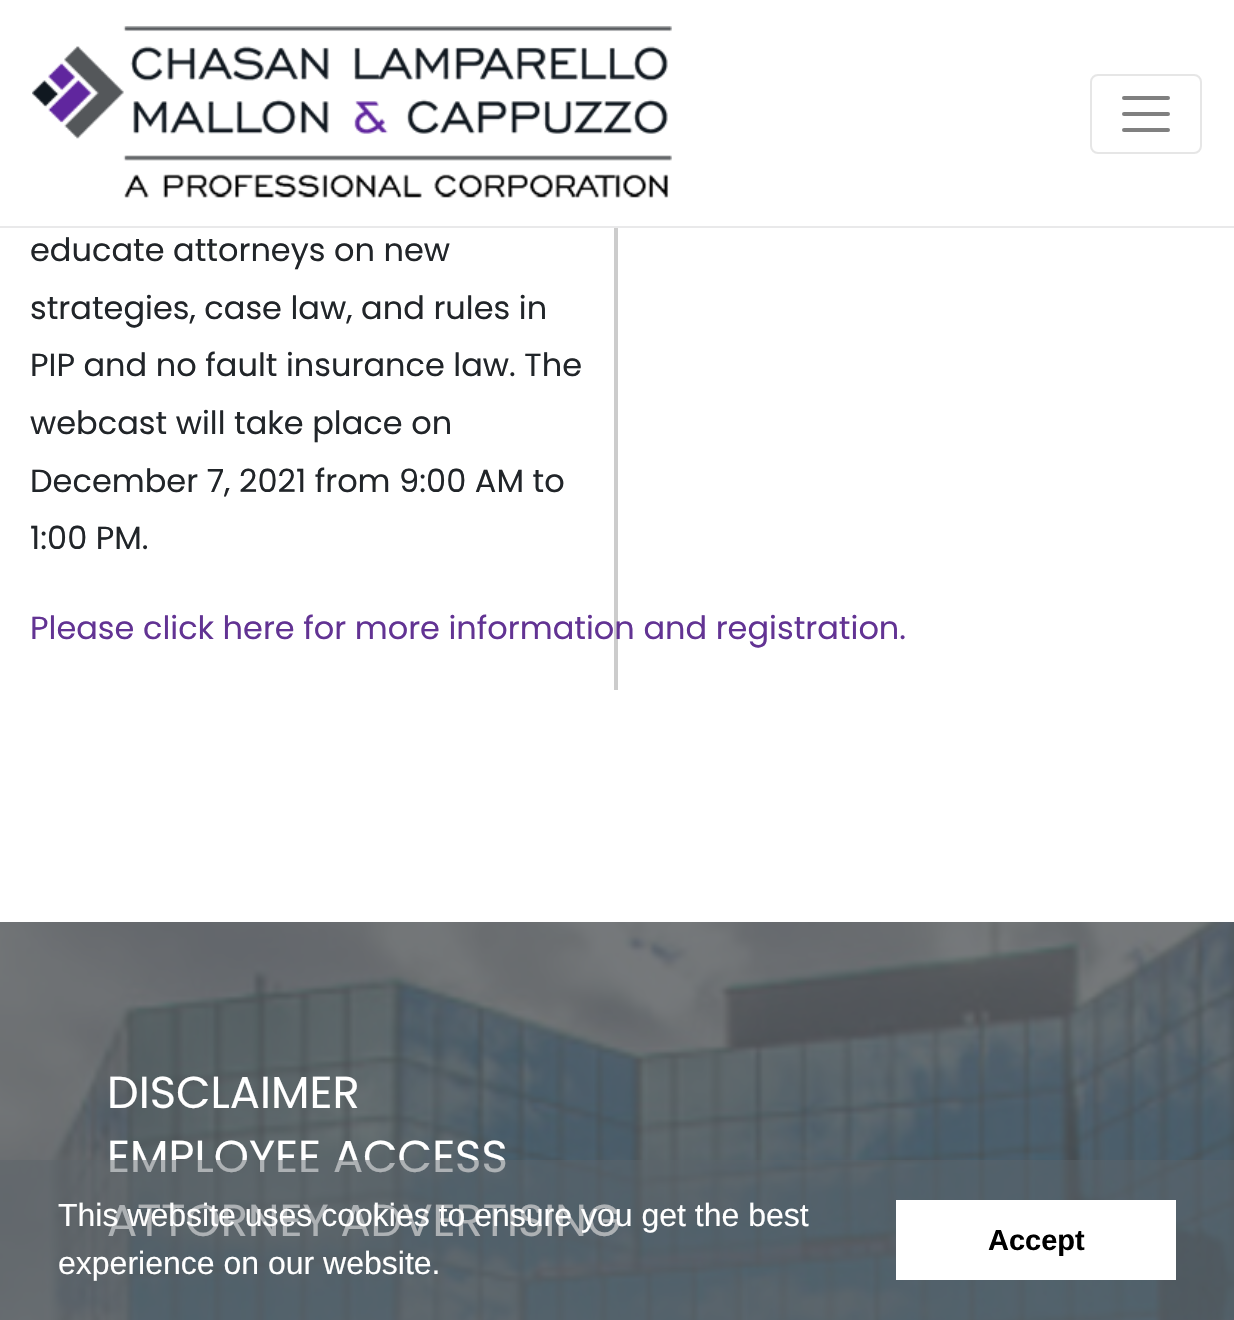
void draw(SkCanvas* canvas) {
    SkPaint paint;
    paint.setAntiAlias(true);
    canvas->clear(0xFFFFFFFF);
    paint.setColor(0xFFE9E9EA);
    canvas->drawRect(SkRect::MakeXYWH(0, 226, 1234, 2), paint);
    canvas->drawImageRect(SkImages::DeferredFromEncodedData(SkData::MakeFromFileName("img1.png")), SkRect::MakeXYWH(32, 26, 640, 172), SkSamplingOptions());
    paint.setStyle(SkPaint::kStroke_Style);
    paint.setStrokeWidth(2);
    paint.setColor(0xFFE6E6E6);
    canvas->drawRoundRect(SkRect::MakeXYWH(1091, 75, 110, 78), 7, 7, paint);
    paint.setStrokeWidth(4);
    paint.setStrokeCap(SkPaint::kRound_Cap);
    paint.setColor(0xFF808080);
    canvas->drawPath(SkPathBuilder().moveTo(1124, 98).lineTo(1168, 98).moveTo(1124, 114).lineTo(1168, 114).moveTo(1124, 130).lineTo(1168, 130).detach(), paint);
    paint.setStyle(SkPaint::kFill_Style);
    paint.setColor(0xFFCCCCCC);
    canvas->drawRect(SkRect::MakeXYWH(614, 228, 4, 462), paint);
    SkFont font1(fontMgr->matchFamilyStyle("Poppins", SkFontStyle::Normal()), 32);
    font1.setSubpixel(true);
    paint.setColor(0xFF212529);
    canvas->drawString("educate attorneys on new", 30, 261, font1, paint);
    canvas->drawString("strategies, case law, and rules in", 30, 319, font1, paint);
    canvas->drawString("PIP and no fault insurance law. The", 30, 376, font1, paint);
    canvas->drawString("webcast will take place on", 30, 434, font1, paint);
    canvas->drawString("December 7, 2021 from 9:00 AM to", 30, 492, font1, paint);
    canvas->drawString("1:00 PM.", 30, 549, font1, paint);
    paint.setColor(0xFF623393);
    canvas->drawString("Please click here for more information and registration.", 30, 639, font1, paint);
    canvas->drawImageRect(SkImages::DeferredFromEncodedData(SkData::MakeFromFileName("img2.png")), SkRect::MakeXYWH(0, 922, 1234, 398), SkSamplingOptions());
    SkFont font2(fontMgr->matchFamilyStyle("Poppins", SkFontStyle::Normal()), 44.75f);
    font2.setSubpixel(true);
    paint.setColor(0xFFFFFFFF);
    canvas->drawString("DISCLAIMER", 107, 1108, font2, paint);
    canvas->drawString("EMPLOYEE ACCESS", 107, 1172, font2, paint);
    canvas->drawString("ATTORNEY ADVERTISING", 107, 1236, font2, paint);
    paint.setColor(0x805B636A);
    canvas->drawRect(SkRect::MakeXYWH(0, 1160, 1234, 160), paint);
    SkFont font3(fontMgr->matchFamilyStyle("Liberation Sans", SkFontStyle::Normal()), 32);
    font3.setSubpixel(true);
    paint.setColor(0xFFFFFFFF);
    canvas->drawString("This website uses cookies to ensure you get the best", 58, 1226, font3, paint);
    canvas->drawString("experience on our website.", 58, 1274, font3, paint);
    canvas->drawRect(SkRect::MakeXYWH(896, 1200, 280, 80), paint);
    SkFont font4(fontMgr->matchFamilyStyle("Liberation Sans", SkFontStyle::Bold()), 29);
    font4.setSubpixel(true);
    paint.setColor(0xFF000000);
    canvas->drawString("Accept", 988, 1250, font4, paint);
}
